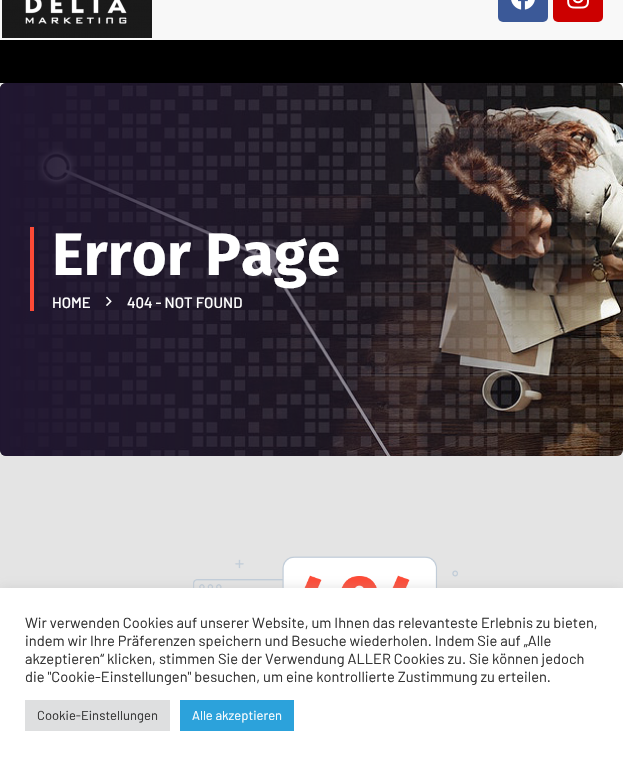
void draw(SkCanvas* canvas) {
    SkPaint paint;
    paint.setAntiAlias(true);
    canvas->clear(0xFFE4E4E4);
    paint.setColor(0xFFF8F8F8);
    canvas->drawRect(SkRect::MakeXYWH(0, 0, 623, 40), paint);
    canvas->drawImageRect(SkImages::DeferredFromEncodedData(SkData::MakeFromFileName("img1.png")), SkRect::MakeXYWH(2, 0, 150, 38), SkSamplingOptions());
    paint.setColor(0xFF3B5998);
    canvas->drawRoundRect(SkRect::MakeXYWH(498, -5, 50, 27), 5, 5, paint);
    canvas->drawImageRect(SkImages::DeferredFromEncodedData(SkData::MakeFromFileName("img2.png")), SkRect::MakeXYWH(511, 0, 24, 10), SkSamplingOptions());
    paint.setColor(0xFFCC0000);
    canvas->drawRoundRect(SkRect::MakeXYWH(553, -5, 50, 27), 5, 5, paint);
    canvas->drawImageRect(SkImages::DeferredFromEncodedData(SkData::MakeFromFileName("img3.png")), SkRect::MakeXYWH(567, 0, 22, 9), SkSamplingOptions());
    paint.setColor(0xFF000000);
    canvas->drawRect(SkRect::MakeXYWH(0, 40, 623, 43), paint);
    canvas->drawImageRect(SkImages::DeferredFromEncodedData(SkData::MakeFromFileName("img4.png")), SkRect::MakeXYWH(0, 83, 623, 373), SkSamplingOptions());
    {
        const SkColor colors[] = {0xFF201630, 0x00201630};
        const float stops[] = {0, 1};
        const SkPoint ends[] = {{0, 270}, {623, 270}};
        paint.setShader(SkGradientShader::MakeLinear(ends, colors, stops, 2, SkTileMode::kClamp));
        paint.setAlpha(255);
    }
    canvas->drawRoundRect(SkRect::MakeXYWH(0, 83, 623, 373), 6, 6, paint);
    paint.setShader(nullptr);
    paint.setColor(0xFFFD4A36);
    canvas->drawRect(SkRect::MakeXYWH(30, 227, 4, 84), paint);
    SkFont font1(fontMgr->matchFamilyStyle("Fira Sans", SkFontStyle::Bold()), 60);
    font1.setSubpixel(true);
    paint.setColor(0xFFFFFFFF);
    canvas->drawString("Error Page", 52, 275, font1, paint);
    SkFont font2(fontMgr->matchFamilyStyle("Barlow", SkFontStyle(500, SkFontStyle::kNormal_Width, SkFontStyle::kUpright_Slant)), 15);
    font2.setSubpixel(true);
    canvas->drawString("HOME", 52, 308, font2, paint);
    canvas->drawImageRect(SkImages::DeferredFromEncodedData(SkData::MakeFromFileName("img5.png")), SkRect::MakeXYWH(106, 296, 6, 10), SkSamplingOptions());
    canvas->drawString("404 - NOT FOUND", 127, 308, font2, paint);
    canvas->drawImageRect(SkImages::DeferredFromEncodedData(SkData::MakeFromFileName("img6.png")), SkRect::MakeXYWH(193, 556, 265, 32), SkSamplingOptions());
    paint.setColor(0x4DACABAB);
    paint.setMaskFilter(SkMaskFilter::MakeBlur(kNormal_SkBlurStyle, 5));
    canvas->drawRect(SkRect::MakeXYWH(0, 587, 623, 173), paint);
    paint.setMaskFilter(nullptr);
    paint.setColor(0xFFFFFFFF);
    canvas->drawRect(SkRect::MakeXYWH(0, 588, 623, 173), paint);
    SkFont font3(fontMgr->matchFamilyStyle("Barlow", SkFontStyle::Normal()), 14.65f);
    font3.setSubpixel(true);
    paint.setColor(0xFF333333);
    canvas->drawString("Wir verwenden Cookies auf unserer Website, um Ihnen das relevanteste Erlebnis zu bieten,", 25, 628, font3, paint);
    canvas->drawString("indem wir Ihre Präferenzen speichern und Besuche wiederholen. Indem Sie auf „Alle", 25, 646, font3, paint);
    canvas->drawString("akzeptieren“ klicken, stimmen Sie der Verwendung ALLER Cookies zu. Sie können jedoch", 25, 664, font3, paint);
    canvas->drawString("die \"Cookie-Einstellungen\" besuchen, um eine kontrollierte Zustimmung zu erteilen.", 25, 682, font3, paint);
    paint.setColor(0xFFDEDFE0);
    canvas->drawRect(SkRect::MakeXYWH(25, 700, 145, 31), paint);
    SkFont font4(fontMgr->matchFamilyStyle("Barlow", SkFontStyle::Normal()), 13);
    font4.setSubpixel(true);
    paint.setColor(0xFF333333);
    canvas->drawString("Cookie-Einstellungen", 37, 720, font4, paint);
    paint.setColor(0xFF2CA2DB);
    canvas->drawRect(SkRect::MakeXYWH(180, 700, 114, 31), paint);
    paint.setColor(0xFFFFFFFF);
    canvas->drawString("Alle akzeptieren", 192, 720, font4, paint);
}
